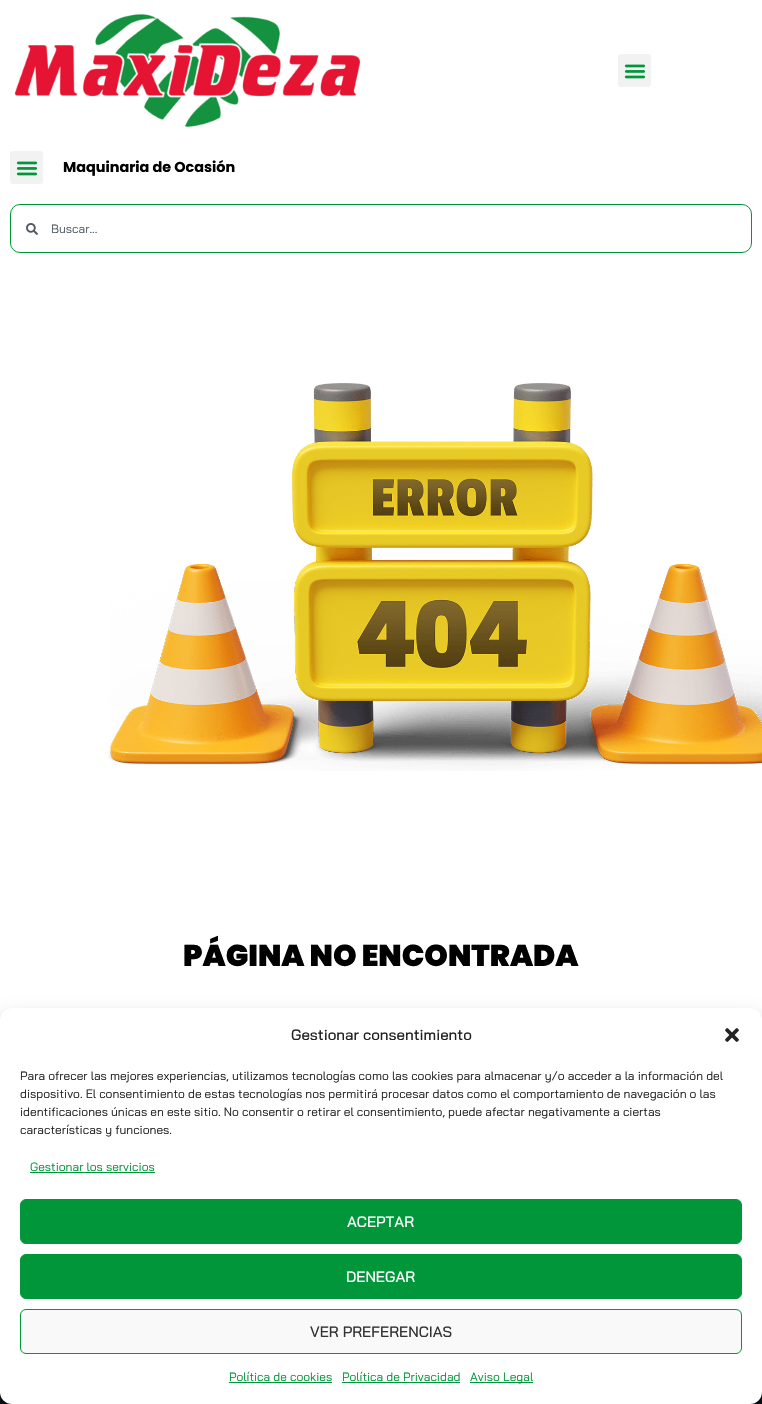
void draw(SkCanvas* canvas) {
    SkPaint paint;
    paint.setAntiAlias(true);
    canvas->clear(0xFFFFFFFF);
    canvas->drawImageRect(SkImages::DeferredFromEncodedData(SkData::MakeFromFileName("img1.png")), SkRect::MakeXYWH(14, 14, 347, 113), SkSamplingOptions());
    paint.setColor(0xFFF2F2F2);
    canvas->drawRoundRect(SkRect::MakeXYWH(618, 54, 33, 33), 3, 3, paint);
    canvas->drawImageRect(SkImages::DeferredFromEncodedData(SkData::MakeFromFileName("img2.png")), SkRect::MakeXYWH(624, 64, 22, 15), SkSamplingOptions());
    canvas->drawRoundRect(SkRect::MakeXYWH(10, 151, 33, 33), 3, 3, paint);
    canvas->drawImageRect(SkImages::DeferredFromEncodedData(SkData::MakeFromFileName("img2.png")), SkRect::MakeXYWH(16, 161, 22, 15), SkSamplingOptions());
    SkFont font1(fontMgr->matchFamilyStyle("Poppins", SkFontStyle::Bold()), 14.4f);
    font1.setSubpixel(true);
    paint.setColor(0xFF000000);
    canvas->drawString("Maquinaria de Ocasión", 63, 172, font1, paint);
    paint.setStyle(SkPaint::kStroke_Style);
    paint.setStrokeWidth(1);
    paint.setColor(0xFF009639);
    canvas->drawRoundRect(SkRect::MakeXYWH(10.5f, 204.5f, 741, 48), 9.5f, 9.5f, paint);
    canvas->drawImageRect(SkImages::DeferredFromEncodedData(SkData::MakeFromFileName("img3.png")), SkRect::MakeXYWH(26, 223, 12, 12), SkSamplingOptions());
    SkFont font2(fontMgr->matchFamilyStyle("Bai Jamjuree", SkFontStyle::Normal()), 12);
    font2.setSubpixel(true);
    paint.setStyle(SkPaint::kFill_Style);
    paint.setColor(0xFF515962);
    canvas->drawString("Buscar...", 51, 233, font2, paint);
    canvas->drawImageRect(SkImages::DeferredFromEncodedData(SkData::MakeFromFileName("img4.png")), SkRect::MakeXYWH(108, 383, 654, 388), SkSamplingOptions());
    SkFont font3(fontMgr->matchFamilyStyle("Poppins", SkFontStyle(900, SkFontStyle::kNormal_Width, SkFontStyle::kUpright_Slant)), 30);
    font3.setSubpixel(true);
    paint.setColor(0xFF000000);
    canvas->drawString("PÁGINA NO ENCONTRADA", 183, 966, font3, paint);
    paint.setColor(0xFF091017);
    canvas->drawRect(SkRect::MakeXYWH(0, 1392, 762, 12), paint);
    paint.setColor(0x3B000000);
    paint.setMaskFilter(SkMaskFilter::MakeBlur(kNormal_SkBlurStyle, 3));
    canvas->drawRoundRect(SkRect::MakeXYWH(0, 1014, 762, 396), 12, 12, paint);
    paint.setMaskFilter(nullptr);
    paint.setColor(0x30000000);
    paint.setMaskFilter(SkMaskFilter::MakeBlur(kNormal_SkBlurStyle, 10));
    canvas->drawRoundRect(SkRect::MakeXYWH(0, 1018, 762, 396), 12, 12, paint);
    paint.setMaskFilter(nullptr);
    paint.setColor(0xFFFFFFFF);
    canvas->drawRoundRect(SkRect::MakeXYWH(0, 1008, 762, 396), 12, 12, paint);
    SkFont font4(fontMgr->matchFamilyStyle("Bai Jamjuree", SkFontStyle(500, SkFontStyle::kNormal_Width, SkFontStyle::kUpright_Slant)), 15);
    font4.setSubpixel(true);
    paint.setColor(0xFF222222);
    canvas->drawString("Gestionar consentimiento", 291, 1040, font4, paint);
    canvas->drawImageRect(SkImages::DeferredFromEncodedData(SkData::MakeFromFileName("img5.png")), SkRect::MakeXYWH(725, 1028, 14, 14), SkSamplingOptions());
    canvas->drawString("Para ofrecer las mejores experiencias, utilizamos tecnologías como las cookies para almacenar y/o acceder a la información del", 20, 1080, font2, paint);
    canvas->drawString("dispositivo. El consentimiento de estas tecnologías nos permitirá procesar datos como el comportamiento de navegación o las", 20, 1098, font2, paint);
    canvas->drawString("identificaciones únicas en este sitio. No consentir o retirar el consentimiento, puede afectar negativamente a ciertas", 20, 1116, font2, paint);
    canvas->drawString("características y funciones.", 20, 1134, font2, paint);
    paint.setColor(0xFF009639);
    canvas->drawString("Gestionar los servicios", 30, 1171, font2, paint);
    canvas->drawRect(SkRect::MakeXYWH(30, 1172, 125, 1), paint);
    canvas->drawRoundRect(SkRect::MakeXYWH(20.5f, 1199.5f, 721, 44), 5.5f, 5.5f, paint);
    paint.setStyle(SkPaint::kStroke_Style);
    canvas->drawRoundRect(SkRect::MakeXYWH(20.5f, 1199.5f, 721, 44), 5.5f, 5.5f, paint);
    paint.setStyle(SkPaint::kFill_Style);
    paint.setColor(0xFFFFFFFF);
    canvas->drawString("ACEPTAR", 347, 1227, font4, paint);
    paint.setColor(0xFF009639);
    canvas->drawRoundRect(SkRect::MakeXYWH(20.5f, 1254.5f, 721, 44), 5.5f, 5.5f, paint);
    paint.setStyle(SkPaint::kStroke_Style);
    canvas->drawRoundRect(SkRect::MakeXYWH(20.5f, 1254.5f, 721, 44), 5.5f, 5.5f, paint);
    paint.setStyle(SkPaint::kFill_Style);
    paint.setColor(0xFFFFFFFF);
    canvas->drawString("DENEGAR", 346, 1282, font4, paint);
    paint.setColor(0xFFF9F9F9);
    canvas->drawRoundRect(SkRect::MakeXYWH(20.5f, 1309.5f, 721, 44), 5.5f, 5.5f, paint);
    paint.setStyle(SkPaint::kStroke_Style);
    paint.setColor(0xFF009639);
    canvas->drawRoundRect(SkRect::MakeXYWH(20.5f, 1309.5f, 721, 44), 5.5f, 5.5f, paint);
    paint.setStyle(SkPaint::kFill_Style);
    paint.setColor(0xFF333333);
    canvas->drawString("VER PREFERENCIAS", 310, 1337, font4, paint);
    paint.setColor(0xFF009639);
    canvas->drawString("Política de cookies", 229, 1381, font2, paint);
    canvas->drawRect(SkRect::MakeXYWH(229, 1382, 103, 1), paint);
    canvas->drawString("Política de Privacidad", 342, 1381, font2, paint);
    canvas->drawRect(SkRect::MakeXYWH(342, 1382, 118, 1), paint);
    canvas->drawRect(SkRect::MakeXYWH(470, 1382, 63, 1), paint);
    canvas->drawString("Aviso Legal", 470, 1381, font2, paint);
}
